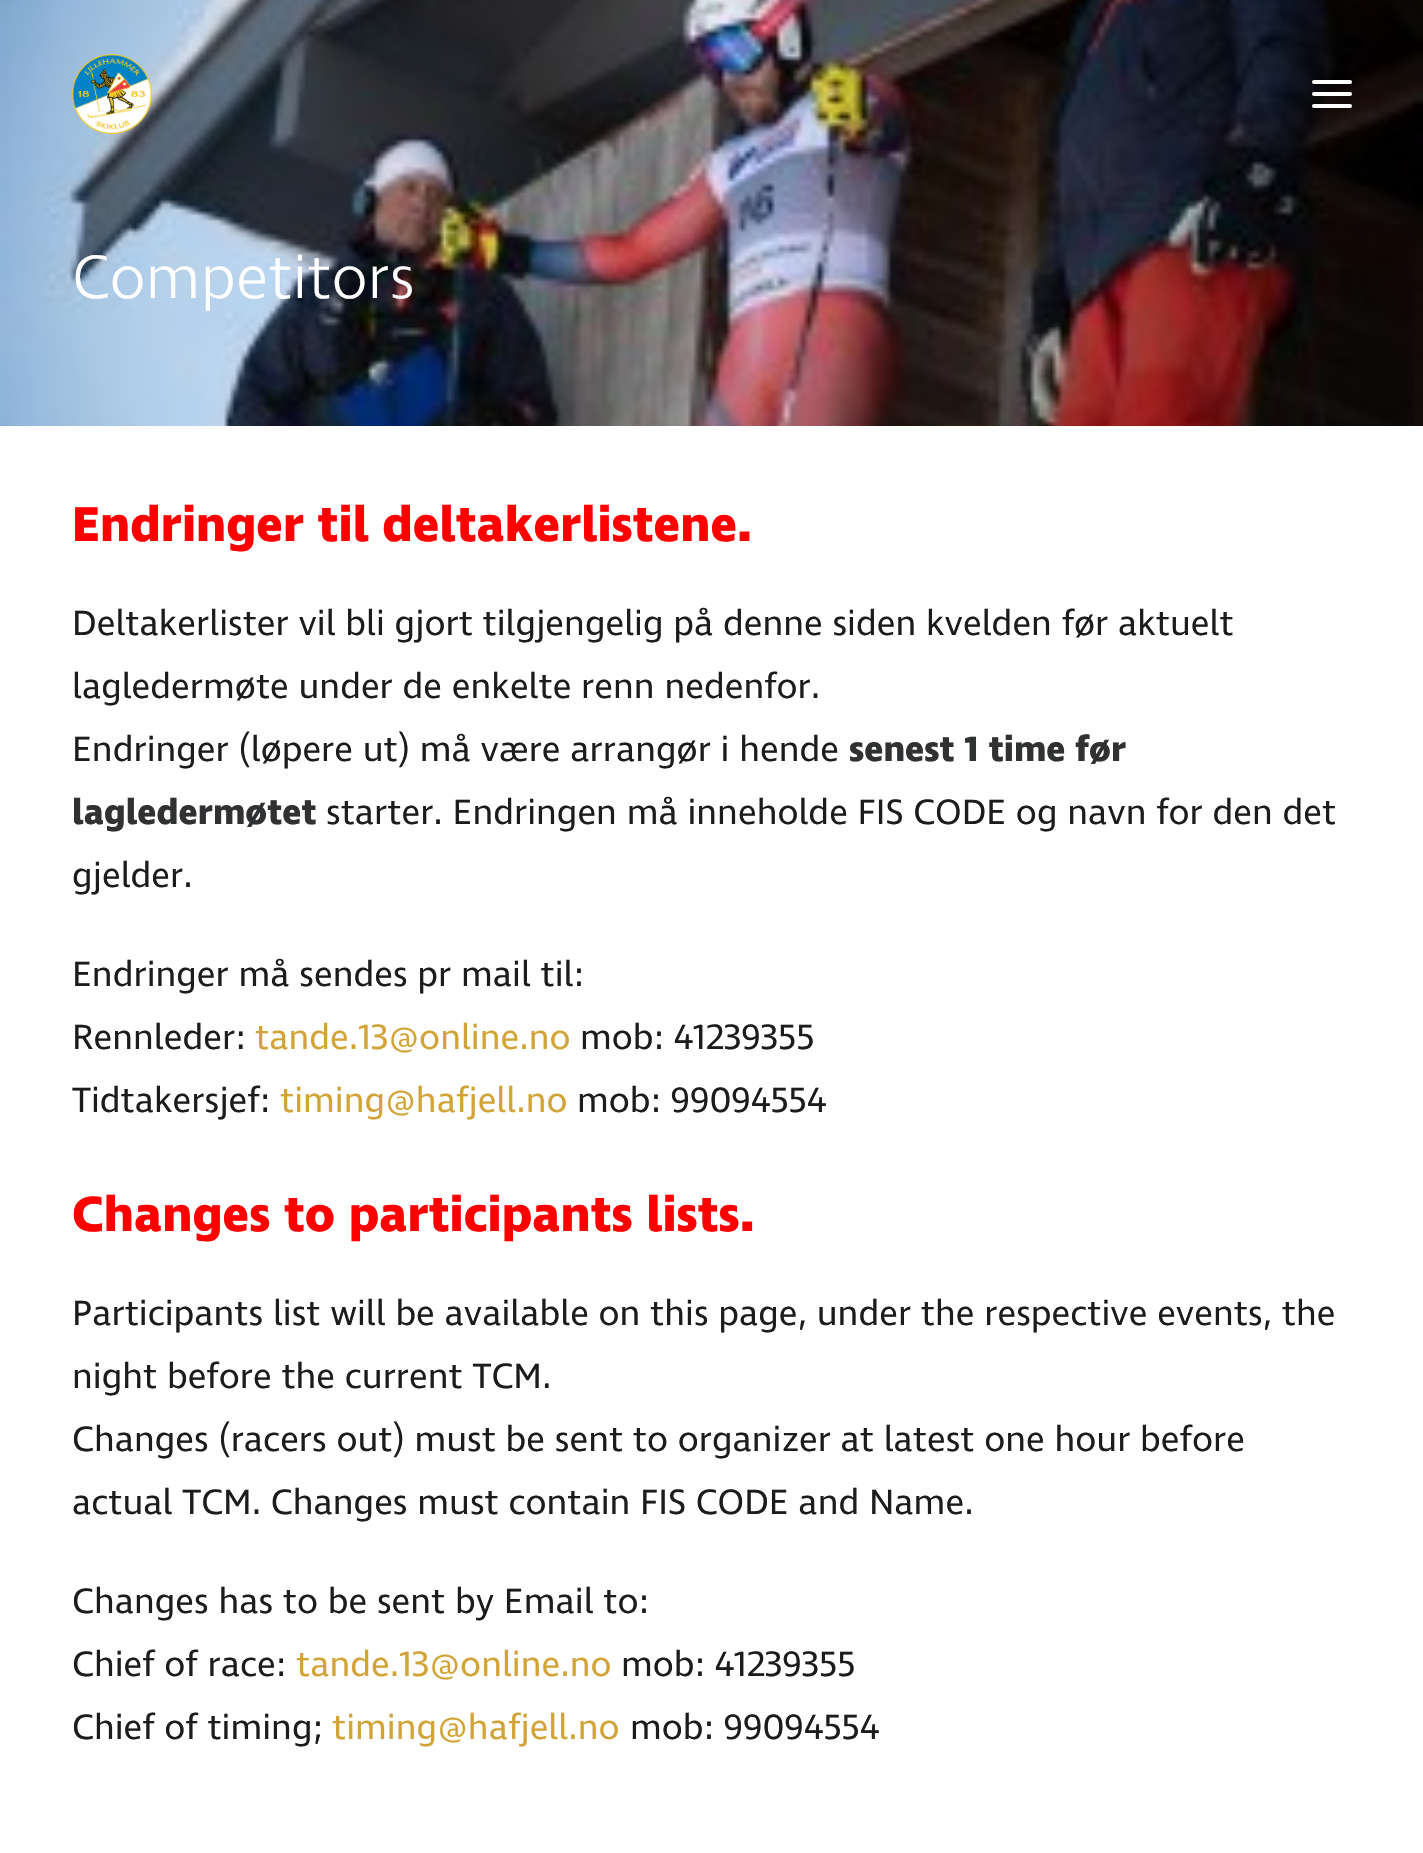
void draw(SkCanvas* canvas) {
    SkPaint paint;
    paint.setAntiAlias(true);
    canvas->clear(0xFFFFFFFF);
    canvas->drawImageRect(SkImages::DeferredFromEncodedData(SkData::MakeFromFileName("img2.png")), SkRect::MakeXYWH(0, 0, 1423, 426), SkSamplingOptions());
    canvas->drawImageRect(SkImages::DeferredFromEncodedData(SkData::MakeFromFileName("img1.png")), SkRect::MakeXYWH(72, 54, 80, 80), SkSamplingOptions());
    paint.setColor(0xFFFFFFFF);
    canvas->drawRoundRect(SkRect::MakeXYWH(1312, 92, 40, 4), 2, 2, paint);
    canvas->drawRoundRect(SkRect::MakeXYWH(1312, 80, 40, 4), 2, 2, paint);
    canvas->drawRoundRect(SkRect::MakeXYWH(1312, 104, 40, 4), 2, 2, paint);
    SkFont font1(fontMgr->matchFamilyStyle("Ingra", SkFontStyle(300, SkFontStyle::kNormal_Width, SkFontStyle::kUpright_Slant)), 62.5f);
    font1.setSubpixel(true);
    canvas->drawString("Competitors", 72, 298, font1, paint);
    SkFont font2(fontMgr->matchFamilyStyle("Ingra", SkFontStyle::Bold()), 50);
    font2.setSubpixel(true);
    paint.setColor(0xFFFF0000);
    canvas->drawString("Endringer til deltakerlistene.", 72, 541, font2, paint);
    SkFont font3(fontMgr->matchFamilyStyle("Ingra", SkFontStyle::Normal()), 36);
    font3.setSubpixel(true);
    paint.setColor(0xFF1C1C1C);
    canvas->drawString("Deltakerlister vil bli gjort tilgjengelig på denne siden kvelden før aktuelt", 72, 635, font3, paint);
    canvas->drawString("lagledermøte under de enkelte renn nedenfor.", 72, 698, font3, paint);
    canvas->drawString("Endringer (løpere ut) må være arrangør i hende", 72, 761, font3, paint);
    SkFont font4(fontMgr->matchFamilyStyle("Ingra", SkFontStyle::Bold()), 36);
    font4.setSubpixel(true);
    paint.setColor(0xFF303133);
    canvas->drawString("senest 1 time før", 849, 761, font4, paint);
    canvas->drawString("lagledermøtet", 72, 824, font4, paint);
    paint.setColor(0xFF1C1C1C);
    canvas->drawString("starter. Endringen må inneholde FIS CODE og navn for den det", 326, 824, font3, paint);
    canvas->drawString("gjelder.", 72, 887, font3, paint);
    canvas->drawString("Endringer må sendes pr mail til:", 72, 986, font3, paint);
    canvas->drawString("Rennleder:", 72, 1049, font3, paint);
    paint.setColor(0xFFD2A437);
    canvas->drawString("tande.13@online.no", 255, 1049, font3, paint);
    paint.setColor(0xFF1C1C1C);
    canvas->drawString("mob: 41239355", 580, 1049, font3, paint);
    canvas->drawString("Tidtakersjef:", 72, 1112, font3, paint);
    paint.setColor(0xFFD2A437);
    canvas->drawString("timing@hafjell.no", 280, 1112, font3, paint);
    paint.setColor(0xFF1C1C1C);
    canvas->drawString("mob: 99094554", 577, 1112, font3, paint);
    paint.setColor(0xFFFF0000);
    canvas->drawString("Changes to participants lists.", 72, 1231, font2, paint);
    paint.setColor(0xFF1C1C1C);
    canvas->drawString("Participants list will be available on this page, under the respective events, the", 72, 1325, font3, paint);
    canvas->drawString("night before the current TCM.", 72, 1388, font3, paint);
    canvas->drawString("Changes (racers out) must be sent to organizer at latest one hour before", 72, 1451, font3, paint);
    canvas->drawString("actual TCM. Changes must contain FIS CODE and Name.", 72, 1514, font3, paint);
    canvas->drawString("Changes has to be sent by Email to:", 72, 1613, font3, paint);
    canvas->drawString("Chief of race:", 72, 1676, font3, paint);
    paint.setColor(0xFFD2A437);
    canvas->drawString("tande.13@online.no", 296, 1676, font3, paint);
    paint.setColor(0xFF1C1C1C);
    canvas->drawString("mob: 41239355", 621, 1676, font3, paint);
    canvas->drawString("Chief of timing;", 72, 1739, font3, paint);
    paint.setColor(0xFFD2A437);
    canvas->drawString("timing@hafjell.no", 332, 1739, font3, paint);
    paint.setColor(0xFF1C1C1C);
    canvas->drawString("mob: 99094554", 630, 1739, font3, paint);
}
